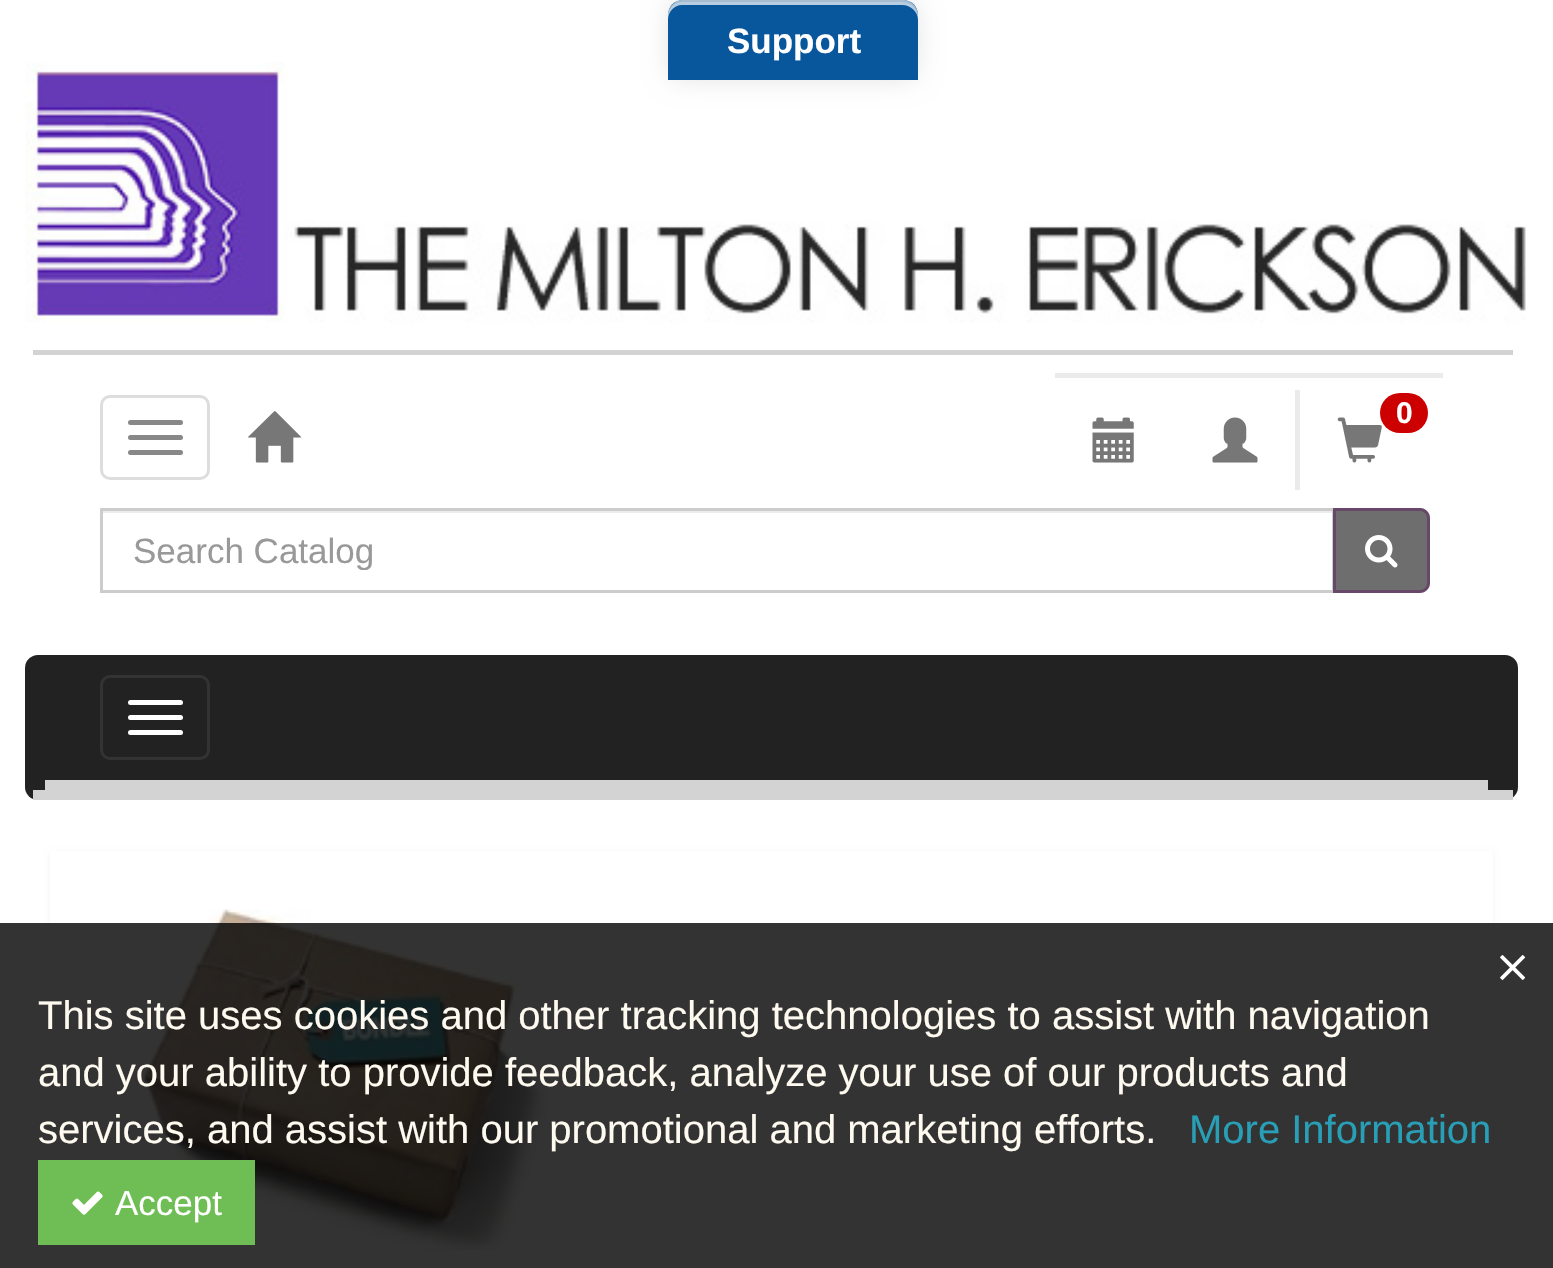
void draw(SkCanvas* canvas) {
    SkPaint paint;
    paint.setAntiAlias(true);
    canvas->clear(0xFFFFFFFF);
    canvas->drawImageRect(SkImages::DeferredFromEncodedData(SkData::MakeFromFileName("img1.png")), SkRect::MakeXYWH(25, 62, 1501, 261), SkSamplingOptions());
    paint.setColor(0x1A000000);
    paint.setMaskFilter(SkMaskFilter::MakeBlur(kNormal_SkBlurStyle, 12.5f));
    canvas->drawRoundRect(SkRect::MakeXYWH(668, 0, 250, 80), 15, 15, paint);
    paint.setMaskFilter(nullptr);
    paint.setColor(0xFF08569B);
    canvas->drawPath(SkPathBuilder().moveTo(683, 0).lineTo(903, 0).cubicTo(911.5f, 0, 918, 6.5f, 918, 15).lineTo(918, 80).lineTo(668, 80).lineTo(668, 15).cubicTo(668, 6.5f, 674.5f, 0, 683, 0).close().detach(), paint);
    paint.setColor(0xB3FFFFFF);
    canvas->drawPath(SkPathBuilder().moveTo(682, 5).lineTo(902, 5).cubicTo(911, 5, 918, 12, 918, 20).lineTo(918, 15).cubicTo(918, 7, 911, 0, 903, 0).lineTo(683, 0).cubicTo(675, 0, 668, 7, 668, 15).lineTo(668, 20).cubicTo(668, 12, 674, 5, 682, 5).close().detach(), paint);
    paint.setColor(0x14000000);
    canvas->drawPath(SkPathBuilder().moveTo(682, 2).lineTo(902, 2).cubicTo(911, 2, 918, 9, 918, 18).lineTo(918, 15).cubicTo(918, 7, 911, 0, 903, 0).lineTo(683, 0).cubicTo(675, 0, 668, 7, 668, 15).lineTo(668, 18).cubicTo(668, 9, 674, 2, 682, 2).close().detach(), paint);
    SkFont font1(fontMgr->matchFamilyStyle("Liberation Sans", SkFontStyle::Bold()), 35);
    font1.setSubpixel(true);
    paint.setColor(0xFFFFFFFF);
    canvas->drawString("Support", 727, 53, font1, paint);
    paint.setColor(0xFFD3D3D3);
    canvas->drawRect(SkRect::MakeXYWH(33, 350, 1480, 5), paint);
    paint.setStyle(SkPaint::kStroke_Style);
    paint.setStrokeWidth(3);
    paint.setColor(0xFFDDDDDD);
    canvas->drawRoundRect(SkRect::MakeXYWH(101.5f, 396.5f, 107, 82), 8.5f, 8.5f, paint);
    paint.setStyle(SkPaint::kFill_Style);
    paint.setColor(0xFF888888);
    canvas->drawRoundRect(SkRect::MakeXYWH(128, 420, 55, 5), 2.5f, 2.5f, paint);
    canvas->drawRoundRect(SkRect::MakeXYWH(128, 435, 55, 5), 2.5f, 2.5f, paint);
    canvas->drawRoundRect(SkRect::MakeXYWH(128, 450, 55, 5), 2.5f, 2.5f, paint);
    canvas->drawImageRect(SkImages::DeferredFromEncodedData(SkData::MakeFromFileName("img2.png")), SkRect::MakeXYWH(248, 411, 54, 52), SkSamplingOptions());
    paint.setColor(0xFFEBEBEB);
    canvas->drawRect(SkRect::MakeXYWH(1055, 373, 388, 5), paint);
    canvas->drawRect(SkRect::MakeXYWH(1295, 390, 5, 100), paint);
    canvas->drawImageRect(SkImages::DeferredFromEncodedData(SkData::MakeFromFileName("img3.png")), SkRect::MakeXYWH(1337, 417, 45, 46), SkSamplingOptions());
    paint.setColor(0xFFCC0000);
    canvas->drawRoundRect(SkRect::MakeXYWH(1380, 393, 48, 40), 20, 20, paint);
    SkFont font2(fontMgr->matchFamilyStyle("Liberation Sans", SkFontStyle::Bold()), 30);
    font2.setSubpixel(true);
    paint.setColor(0xFFFFFFFF);
    canvas->drawString("0", 1396, 423, font2, paint);
    canvas->drawImageRect(SkImages::DeferredFromEncodedData(SkData::MakeFromFileName("img4.png")), SkRect::MakeXYWH(1092, 417, 42, 46), SkSamplingOptions());
    canvas->drawImageRect(SkImages::DeferredFromEncodedData(SkData::MakeFromFileName("img5.png")), SkRect::MakeXYWH(1212, 417, 46, 46), SkSamplingOptions());
    paint.setColor(0xFFECECEC);
    canvas->drawRect(SkRect::MakeXYWH(103, 511, 1230, 2), paint);
    paint.setStyle(SkPaint::kStroke_Style);
    paint.setColor(0xFFCCCCCC);
    canvas->drawRect(SkRect::MakeXYWH(101.5f, 509.5f, 1232, 82), paint);
    canvas->save();
    canvas->clipRect(SkRect::MakeXYWH(133, 530, 1170, 40));
    SkFont font3(fontMgr->matchFamilyStyle("Liberation Sans", SkFontStyle::Normal()), 35);
    font3.setSubpixel(true);
    paint.setStyle(SkPaint::kFill_Style);
    paint.setColor(0xFF999999);
    canvas->drawString("Search Catalog", 133, 563, font3, paint);
    canvas->restore();
    paint.setColor(0xFF6E6E6E);
    canvas->drawPath(SkPathBuilder().moveTo(1333, 508).lineTo(1420, 508).cubicTo(1425.5f, 508, 1430, 512.5f, 1430, 518).lineTo(1430, 583).cubicTo(1430, 588.5f, 1425.5f, 593, 1420, 593).lineTo(1333, 593).close().detach(), paint);
    paint.setStyle(SkPaint::kStroke_Style);
    paint.setColor(0x665D0E5F);
    canvas->drawPath(SkPathBuilder().moveTo(1334.5f, 509.5f).lineTo(1420, 509.5f).cubicTo(1424.5f, 509.5f, 1428.5f, 513.5f, 1428.5f, 518).lineTo(1428.5f, 583).cubicTo(1428.5f, 587.5f, 1424.5f, 591.5f, 1420, 591.5f).lineTo(1334.5f, 591.5f).close().detach(), paint);
    canvas->drawImageRect(SkImages::DeferredFromEncodedData(SkData::MakeFromFileName("img6.png")), SkRect::MakeXYWH(1365, 535, 33, 33), SkSamplingOptions());
    paint.setStyle(SkPaint::kFill_Style);
    paint.setColor(0xFF222222);
    canvas->drawRoundRect(SkRect::MakeXYWH(25, 655, 1493, 145), 13, 13, paint);
    paint.setColor(0xFFD3D3D3);
    canvas->drawRect(SkRect::MakeXYWH(33, 790, 1480, 10), paint);
    canvas->drawRect(SkRect::MakeXYWH(45, 780, 1443, 10), paint);
    paint.setStyle(SkPaint::kStroke_Style);
    paint.setColor(0xFF333333);
    canvas->drawRoundRect(SkRect::MakeXYWH(101.5f, 676.5f, 107, 82), 8.5f, 8.5f, paint);
    paint.setStyle(SkPaint::kFill_Style);
    paint.setColor(0xFFFFFFFF);
    canvas->drawRoundRect(SkRect::MakeXYWH(128, 700, 55, 5), 2.5f, 2.5f, paint);
    canvas->drawRoundRect(SkRect::MakeXYWH(128, 715, 55, 5), 2.5f, 2.5f, paint);
    canvas->drawRoundRect(SkRect::MakeXYWH(128, 730, 55, 5), 2.5f, 2.5f, paint);
    paint.setColor(0x0D000000);
    paint.setMaskFilter(SkMaskFilter::MakeBlur(kNormal_SkBlurStyle, 2.5f));
    canvas->drawRect(SkRect::MakeXYWH(50, 853, 1443, 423), paint);
    paint.setMaskFilter(nullptr);
    paint.setColor(0xFFFFFFFF);
    canvas->drawRect(SkRect::MakeXYWH(50, 851, 1443, 417), paint);
    canvas->drawImageRect(SkImages::DeferredFromEncodedData(SkData::MakeFromFileName("img7.png")), SkRect::MakeXYWH(133, 909, 416, 341), SkSamplingOptions());
    paint.setColor(0xCC000000);
    canvas->drawRect(SkRect::MakeXYWH(0, 923, 1553, 345), paint);
    canvas->drawImageRect(SkImages::DeferredFromEncodedData(SkData::MakeFromFileName("img8.png")), SkRect::MakeXYWH(1500, 955, 26, 25), SkSamplingOptions());
    SkFont font4(fontMgr->matchFamilyStyle("Liberation Sans", SkFontStyle::Normal()), 40);
    font4.setSubpixel(true);
    paint.setColor(0xFFFFFAF0);
    canvas->drawString("This site uses cookies and other tracking technologies to assist with navigation", 38, 1029, font4, paint);
    canvas->drawString("and your ability to provide feedback, analyze your use of our products and", 38, 1086, font4, paint);
    canvas->drawString("services, and assist with our promotional and marketing efforts.", 38, 1143, font4, paint);
    paint.setColor(0xFF289FB7);
    canvas->drawString("More Information", 1189, 1143, font4, paint);
    paint.setColor(0xFF6FBD55);
    canvas->drawRect(SkRect::MakeXYWH(38, 1160, 217, 85), paint);
    canvas->drawImageRect(SkImages::DeferredFromEncodedData(SkData::MakeFromFileName("img9.png")), SkRect::MakeXYWH(72, 1191, 31, 24), SkSamplingOptions());
    paint.setColor(0xFFFFFFFF);
    canvas->drawString("Accept", 115, 1215, font3, paint);
}
